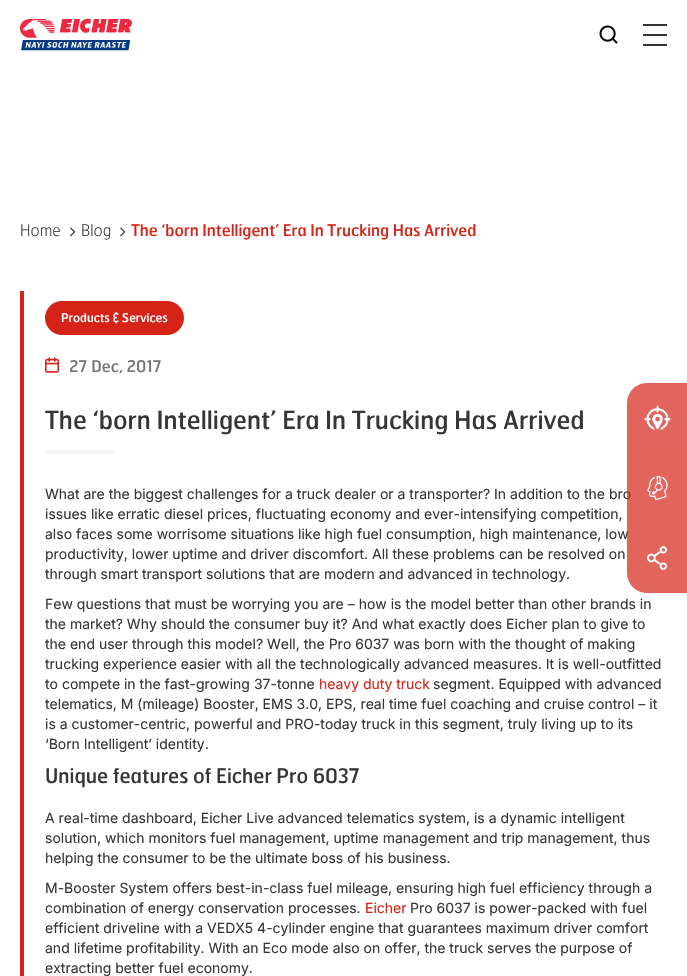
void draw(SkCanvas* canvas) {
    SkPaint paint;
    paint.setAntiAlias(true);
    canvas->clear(0xFFFFFFFF);
    canvas->drawImageRect(SkImages::DeferredFromEncodedData(SkData::MakeFromFileName("img1.png")), SkRect::MakeXYWH(20, 18, 112, 33), SkSamplingOptions());
    canvas->drawImageRect(SkImages::DeferredFromEncodedData(SkData::MakeFromFileName("img2.png")), SkRect::MakeXYWH(599, 25, 19, 19), SkSamplingOptions());
    canvas->drawImageRect(SkImages::DeferredFromEncodedData(SkData::MakeFromFileName("img3.png")), SkRect::MakeXYWH(643, 24, 24, 22), SkSamplingOptions());
    SkFont font1(fontMgr->matchFamilyStyle("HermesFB", SkFontStyle(100, SkFontStyle::kNormal_Width, SkFontStyle::kUpright_Slant)), 16);
    font1.setSubpixel(true);
    paint.setColor(0xFF363636);
    canvas->drawString("Home", 20, 236, font1, paint);
    canvas->drawImageRect(SkImages::DeferredFromEncodedData(SkData::MakeFromFileName("img4.png")), SkRect::MakeXYWH(70, 227, 6, 10), SkSamplingOptions());
    canvas->drawString("Blog", 81, 236, font1, paint);
    canvas->drawImageRect(SkImages::DeferredFromEncodedData(SkData::MakeFromFileName("img4.png")), SkRect::MakeXYWH(120, 227, 6, 10), SkSamplingOptions());
    SkFont font2(fontMgr->matchFamilyStyle("HermesFB", SkFontStyle::Normal()), 16);
    font2.setSubpixel(true);
    paint.setColor(0xFFD62317);
    canvas->drawString("The ‘born Intelligent’ Era In Trucking Has Arrived", 131, 236, font2, paint);
    canvas->drawRect(SkRect::MakeXYWH(20, 291, 4, 685), paint);
    canvas->drawRoundRect(SkRect::MakeXYWH(45, 301, 139, 34), 17, 17, paint);
    SkFont font3(fontMgr->matchFamilyStyle("HermesFB", SkFontStyle::Normal()), 12);
    font3.setSubpixel(true);
    paint.setColor(0xFFFFFFFF);
    canvas->drawString("Products & Services", 61, 322, font3, paint);
    canvas->drawImageRect(SkImages::DeferredFromEncodedData(SkData::MakeFromFileName("img5.png")), SkRect::MakeXYWH(45, 357, 14, 16), SkSamplingOptions());
    paint.setColor(0xFF767676);
    canvas->drawString("27 Dec, 2017", 69, 372, font2, paint);
    SkFont font4(fontMgr->matchFamilyStyle("HermesFB", SkFontStyle::Normal()), 25);
    font4.setSubpixel(true);
    paint.setColor(0xFF363636);
    canvas->drawString("The ‘born Intelligent’ Era In Trucking Has Arrived", 45, 429, font4, paint);
    paint.setColor(0xFFF5F5F5);
    canvas->drawRect(SkRect::MakeXYWH(45, 450, 70, 4), paint);
    SkFont font5(fontMgr->matchFamilyStyle("Inter", SkFontStyle::Normal()), 14);
    font5.setSubpixel(true);
    paint.setColor(0xFF363636);
    canvas->drawString("What are the biggest challenges for a truck dealer or a transporter? In addition to the bro", 45, 499, font5, paint);
    canvas->drawString("issues like erratic diesel prices, fluctuating economy and ever-intensifying competition,", 45, 519, font5, paint);
    canvas->drawString("also faces some worrisome situations like high fuel consumption, high maintenance, low", 45, 539, font5, paint);
    canvas->drawString("productivity, lower uptime and driver discomfort. All these problems can be resolved on", 45, 559, font5, paint);
    canvas->drawString("through smart transport solutions that are modern and advanced in technology.", 45, 579, font5, paint);
    canvas->drawString("Few questions that must be worrying you are – how is the model better than other brands in", 45, 609, font5, paint);
    canvas->drawString("the market? Why should the consumer buy it? And what exactly does Eicher plan to give to", 45, 629, font5, paint);
    canvas->drawString("the end user through this model? Well, the Pro 6037 was born with the thought of making", 45, 649, font5, paint);
    canvas->drawString("trucking experience easier with all the technologically advanced measures. It is well-outfitted", 45, 669, font5, paint);
    canvas->drawString("to compete in the fast-growing 37-tonne", 45, 689, font5, paint);
    paint.setColor(0xFFD62317);
    canvas->drawString("heavy duty truck", 319, 689, font5, paint);
    paint.setColor(0xFF363636);
    canvas->drawString("segment. Equipped with advanced", 433, 689, font5, paint);
    canvas->drawString("telematics, M (mileage) Booster, EMS 3.0, EPS, real time fuel coaching and cruise control – it", 45, 709, font5, paint);
    canvas->drawString("is a customer-centric, powerful and PRO-today truck in this segment, truly living up to its", 45, 729, font5, paint);
    canvas->drawString("‘Born Intelligent’ identity.", 45, 749, font5, paint);
    SkFont font6(fontMgr->matchFamilyStyle("HermesFB", SkFontStyle::Normal()), 20);
    font6.setSubpixel(true);
    canvas->drawString("Unique features of Eicher Pro 6037", 45, 783, font6, paint);
    canvas->drawString("A real-time dashboard, Eicher Live advanced telematics system, is a dynamic intelligent", 45, 823, font5, paint);
    canvas->drawString("solution, which monitors fuel management, uptime management and trip management, thus", 45, 843, font5, paint);
    canvas->drawString("helping the consumer to be the ultimate boss of his business.", 45, 863, font5, paint);
    canvas->drawString("M-Booster System offers best-in-class fuel mileage, ensuring high fuel efficiency through a", 45, 893, font5, paint);
    canvas->drawString("combination of energy conservation processes.", 45, 913, font5, paint);
    paint.setColor(0xFFD62317);
    canvas->drawString("Eicher", 365, 913, font5, paint);
    paint.setColor(0xFF363636);
    canvas->drawString("Pro 6037 is power-packed with fuel", 410, 913, font5, paint);
    canvas->drawString("efficient driveline with a VEDX5 4-cylinder engine that guarantees maximum driver comfort", 45, 933, font5, paint);
    canvas->drawString("and lifetime profitability. With an Eco mode also on offer, the truck serves the purpose of", 45, 953, font5, paint);
    canvas->drawString("extracting better fuel economy.", 45, 973, font5, paint);
    paint.setColor(0xFFE2655D);
    canvas->drawPath(SkPathBuilder().moveTo(647, 383).lineTo(687, 383).lineTo(687, 453).lineTo(627, 453).lineTo(627, 403).cubicTo(627, 392, 636, 383, 647, 383).close().detach(), paint);
    canvas->drawImageRect(SkImages::DeferredFromEncodedData(SkData::MakeFromFileName("img6.png")), SkRect::MakeXYWH(644, 406, 27, 24), SkSamplingOptions());
    paint.setColor(0xB3D62317);
    canvas->drawRect(SkRect::MakeXYWH(627, 453, 60, 70), paint);
    canvas->drawImageRect(SkImages::DeferredFromEncodedData(SkData::MakeFromFileName("img7.png")), SkRect::MakeXYWH(647, 476, 21, 24), SkSamplingOptions());
    canvas->drawPath(SkPathBuilder().moveTo(627, 523).lineTo(687, 523).lineTo(687, 593).lineTo(647, 593).cubicTo(636, 593, 627, 584, 627, 573).close().detach(), paint);
    canvas->drawImageRect(SkImages::DeferredFromEncodedData(SkData::MakeFromFileName("img8.png")), SkRect::MakeXYWH(647, 546, 20, 24), SkSamplingOptions());
}
